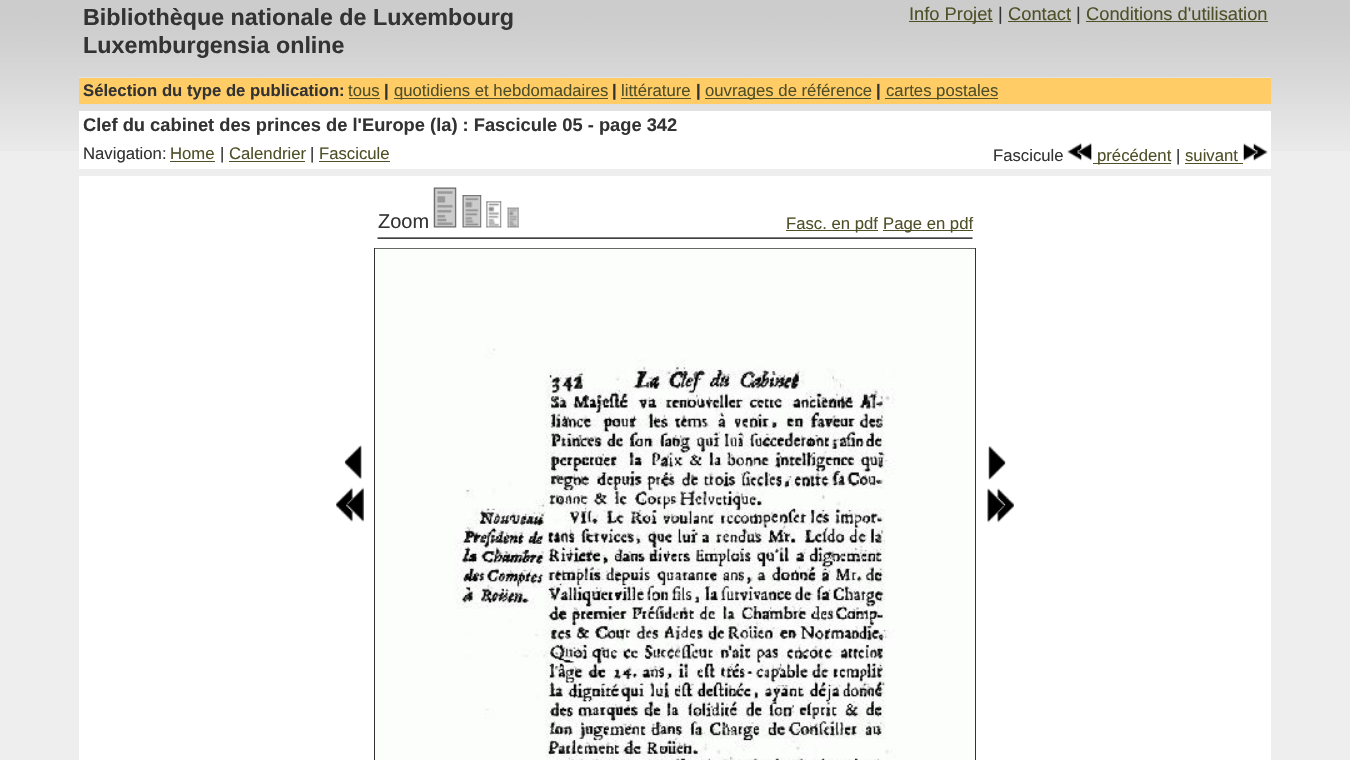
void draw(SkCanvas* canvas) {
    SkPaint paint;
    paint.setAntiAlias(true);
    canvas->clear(0xFFEEEEEE);
    canvas->drawImageRect(SkImages::DeferredFromEncodedData(SkData::MakeFromFileName("img1.png")), SkRect::MakeXYWH(0, 0, 1350, 151), SkSamplingOptions());
    paint.setColor(0xFFEEEEEE);
    canvas->drawRect(SkRect::MakeXYWH(79, 77, 1192, 1), paint);
    canvas->drawImageRect(SkImages::DeferredFromEncodedData(SkData::MakeFromFileName("img2.png")), SkRect::MakeXYWH(79, 0, 1192, 78), SkSamplingOptions());
    SkFont font1(fontMgr->matchFamilyStyle("Liberation Sans", SkFontStyle::Bold()), 23.3f);
    font1.setSubpixel(true);
    paint.setColor(0xFF333333);
    canvas->drawString("Bibliothèque nationale de Luxembourg", 83, 25, font1, paint);
    canvas->drawString("Luxemburgensia online", 83, 53, font1, paint);
    paint.setColor(0xFF4F4F28);
    canvas->drawRect(SkRect::MakeXYWH(909, 21, 84, 1), paint);
    SkFont font2(fontMgr->matchFamilyStyle("Liberation Sans", SkFontStyle::Normal()), 18.3f);
    font2.setSubpixel(true);
    canvas->drawString("Info Projet", 909, 20, font2, paint);
    paint.setColor(0xFF333333);
    canvas->drawString("|", 998, 20, font2, paint);
    paint.setColor(0xFF4F4F28);
    canvas->drawString("Contact", 1008, 20, font2, paint);
    canvas->drawRect(SkRect::MakeXYWH(1008, 21, 63, 1), paint);
    paint.setColor(0xFF333333);
    canvas->drawString("|", 1076, 20, font2, paint);
    paint.setColor(0xFF4F4F28);
    canvas->drawString("Conditions d'utilisation", 1086, 20, font2, paint);
    canvas->drawRect(SkRect::MakeXYWH(1086, 21, 182, 1), paint);
    paint.setColor(0xFFFFCC66);
    canvas->drawRect(SkRect::MakeXYWH(79, 78, 1192, 26), paint);
    SkFont font3(fontMgr->matchFamilyStyle("Liberation Sans", SkFontStyle::Bold()), 16.7f);
    font3.setSubpixel(true);
    paint.setColor(0xFF333333);
    canvas->drawString("Sélection du type de publication:", 83, 96, font3, paint);
    SkFont font4(fontMgr->matchFamilyStyle("Liberation Sans", SkFontStyle::Normal()), 16.7f);
    font4.setSubpixel(true);
    paint.setColor(0xFF4F4F28);
    canvas->drawString("tous", 348, 96, font4, paint);
    canvas->drawRect(SkRect::MakeXYWH(349, 98, 31, 1), paint);
    paint.setColor(0xFF333333);
    canvas->drawString("|", 384, 96, font3, paint);
    paint.setColor(0xFF4F4F28);
    canvas->drawRect(SkRect::MakeXYWH(394, 98, 214, 1), paint);
    canvas->drawString("quotidiens et hebdomadaires", 394, 96, font4, paint);
    paint.setColor(0xFF333333);
    canvas->drawString("|", 612, 96, font3, paint);
    paint.setColor(0xFF4F4F28);
    canvas->drawString("littérature", 621, 96, font4, paint);
    canvas->drawRect(SkRect::MakeXYWH(621, 98, 70, 1), paint);
    paint.setColor(0xFF333333);
    canvas->drawString("|", 696, 96, font3, paint);
    paint.setColor(0xFF4F4F28);
    canvas->drawRect(SkRect::MakeXYWH(705, 98, 166, 1), paint);
    canvas->drawString("ouvrages de référence", 705, 96, font4, paint);
    paint.setColor(0xFF333333);
    canvas->drawString("|", 876, 96, font3, paint);
    paint.setColor(0xFF4F4F28);
    canvas->drawRect(SkRect::MakeXYWH(885, 98, 113, 1), paint);
    canvas->drawString("cartes postales", 886, 96, font4, paint);
    paint.setColor(0xFFFFFFFF);
    canvas->drawRect(SkRect::MakeXYWH(79, 111, 1192, 58), paint);
    SkFont font5(fontMgr->matchFamilyStyle("Liberation Sans", SkFontStyle::Bold()), 18.3f);
    font5.setSubpixel(true);
    paint.setColor(0xFF333333);
    canvas->drawString("Clef du cabinet des princes de l'Europe (la) : Fascicule 05 - page 342", 83, 131, font5, paint);
    canvas->drawString("Navigation:", 83, 159, font4, paint);
    paint.setColor(0xFF4F4F28);
    canvas->drawString("Home", 170, 159, font4, paint);
    canvas->drawRect(SkRect::MakeXYWH(170, 161, 45, 1), paint);
    paint.setColor(0xFF333333);
    canvas->drawString("|", 220, 159, font4, paint);
    paint.setColor(0xFF4F4F28);
    canvas->drawString("Calendrier", 229, 159, font4, paint);
    canvas->drawRect(SkRect::MakeXYWH(229, 161, 76, 1), paint);
    paint.setColor(0xFF333333);
    canvas->drawString("|", 310, 159, font4, paint);
    paint.setColor(0xFF4F4F28);
    canvas->drawString("Fascicule", 319, 159, font4, paint);
    canvas->drawRect(SkRect::MakeXYWH(319, 161, 71, 1), paint);
    paint.setColor(0xFF333333);
    canvas->drawString("Fascicule", 993, 161, font4, paint);
    canvas->drawImageRect(SkImages::DeferredFromEncodedData(SkData::MakeFromFileName("img3.png")), SkRect::MakeXYWH(1067, 142, 25, 19), SkSamplingOptions());
    paint.setColor(0xFF4F4F28);
    canvas->drawRect(SkRect::MakeXYWH(1093, 163, 78, 1), paint);
    canvas->drawString("précédent", 1097, 161, font4, paint);
    paint.setColor(0xFF333333);
    canvas->drawString("|", 1176, 161, font4, paint);
    paint.setColor(0xFF4F4F28);
    canvas->drawString("suivant", 1185, 161, font4, paint);
    canvas->drawRect(SkRect::MakeXYWH(1185, 163, 58, 1), paint);
    canvas->drawImageRect(SkImages::DeferredFromEncodedData(SkData::MakeFromFileName("img4.png")), SkRect::MakeXYWH(1243, 143, 25, 18), SkSamplingOptions());
    paint.setColor(0xFFFFFFFF);
    canvas->drawRect(SkRect::MakeXYWH(79, 176, 1192, 584), paint);
    SkFont font6(fontMgr->matchFamilyStyle("Liberation Sans", SkFontStyle::Normal()), 20);
    font6.setSubpixel(true);
    paint.setColor(0xFF333333);
    canvas->drawString("Zoom", 378, 228, font6, paint);
    canvas->drawImageRect(SkImages::DeferredFromEncodedData(SkData::MakeFromFileName("img5.png")), SkRect::MakeXYWH(433, 187, 24, 41), SkSamplingOptions());
    canvas->drawImageRect(SkImages::DeferredFromEncodedData(SkData::MakeFromFileName("img6.png")), SkRect::MakeXYWH(462, 195, 20, 33), SkSamplingOptions());
    canvas->drawImageRect(SkImages::DeferredFromEncodedData(SkData::MakeFromFileName("img7.png")), SkRect::MakeXYWH(486, 201, 16, 27), SkSamplingOptions());
    canvas->drawImageRect(SkImages::DeferredFromEncodedData(SkData::MakeFromFileName("img8.png")), SkRect::MakeXYWH(507, 207, 12, 21), SkSamplingOptions());
    paint.setColor(0xFF4F4F28);
    canvas->drawRect(SkRect::MakeXYWH(786, 230, 92, 1), paint);
    canvas->drawString("Fasc. en pdf", 786, 229, font4, paint);
    canvas->drawRect(SkRect::MakeXYWH(883, 230, 90, 1), paint);
    canvas->drawString("Page en pdf", 883, 229, font4, paint);
    canvas->drawImageRect(SkImages::DeferredFromEncodedData(SkData::MakeFromFileName("img9.png")), SkRect::MakeXYWH(377, 237, 596, 2), SkSamplingOptions());
    canvas->drawImageRect(SkImages::DeferredFromEncodedData(SkData::MakeFromFileName("img10.png")), SkRect::MakeXYWH(344, 445, 18, 34), SkSamplingOptions());
    canvas->drawImageRect(SkImages::DeferredFromEncodedData(SkData::MakeFromFileName("img11.png")), SkRect::MakeXYWH(336, 487, 28, 35), SkSamplingOptions());
    paint.setStyle(SkPaint::kStroke_Style);
    paint.setStrokeWidth(1);
    paint.setColor(0xFF333333);
    canvas->drawRect(SkRect::MakeXYWH(374.5f, 248.5f, 601, 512), paint);
    canvas->drawImageRect(SkImages::DeferredFromEncodedData(SkData::MakeFromFileName("img12.png")), SkRect::MakeXYWH(375, 248, 600, 512), SkSamplingOptions());
    canvas->drawImageRect(SkImages::DeferredFromEncodedData(SkData::MakeFromFileName("img13.png")), SkRect::MakeXYWH(988, 446, 18, 35), SkSamplingOptions());
    canvas->drawImageRect(SkImages::DeferredFromEncodedData(SkData::MakeFromFileName("img14.png")), SkRect::MakeXYWH(987, 488, 27, 35), SkSamplingOptions());
}
